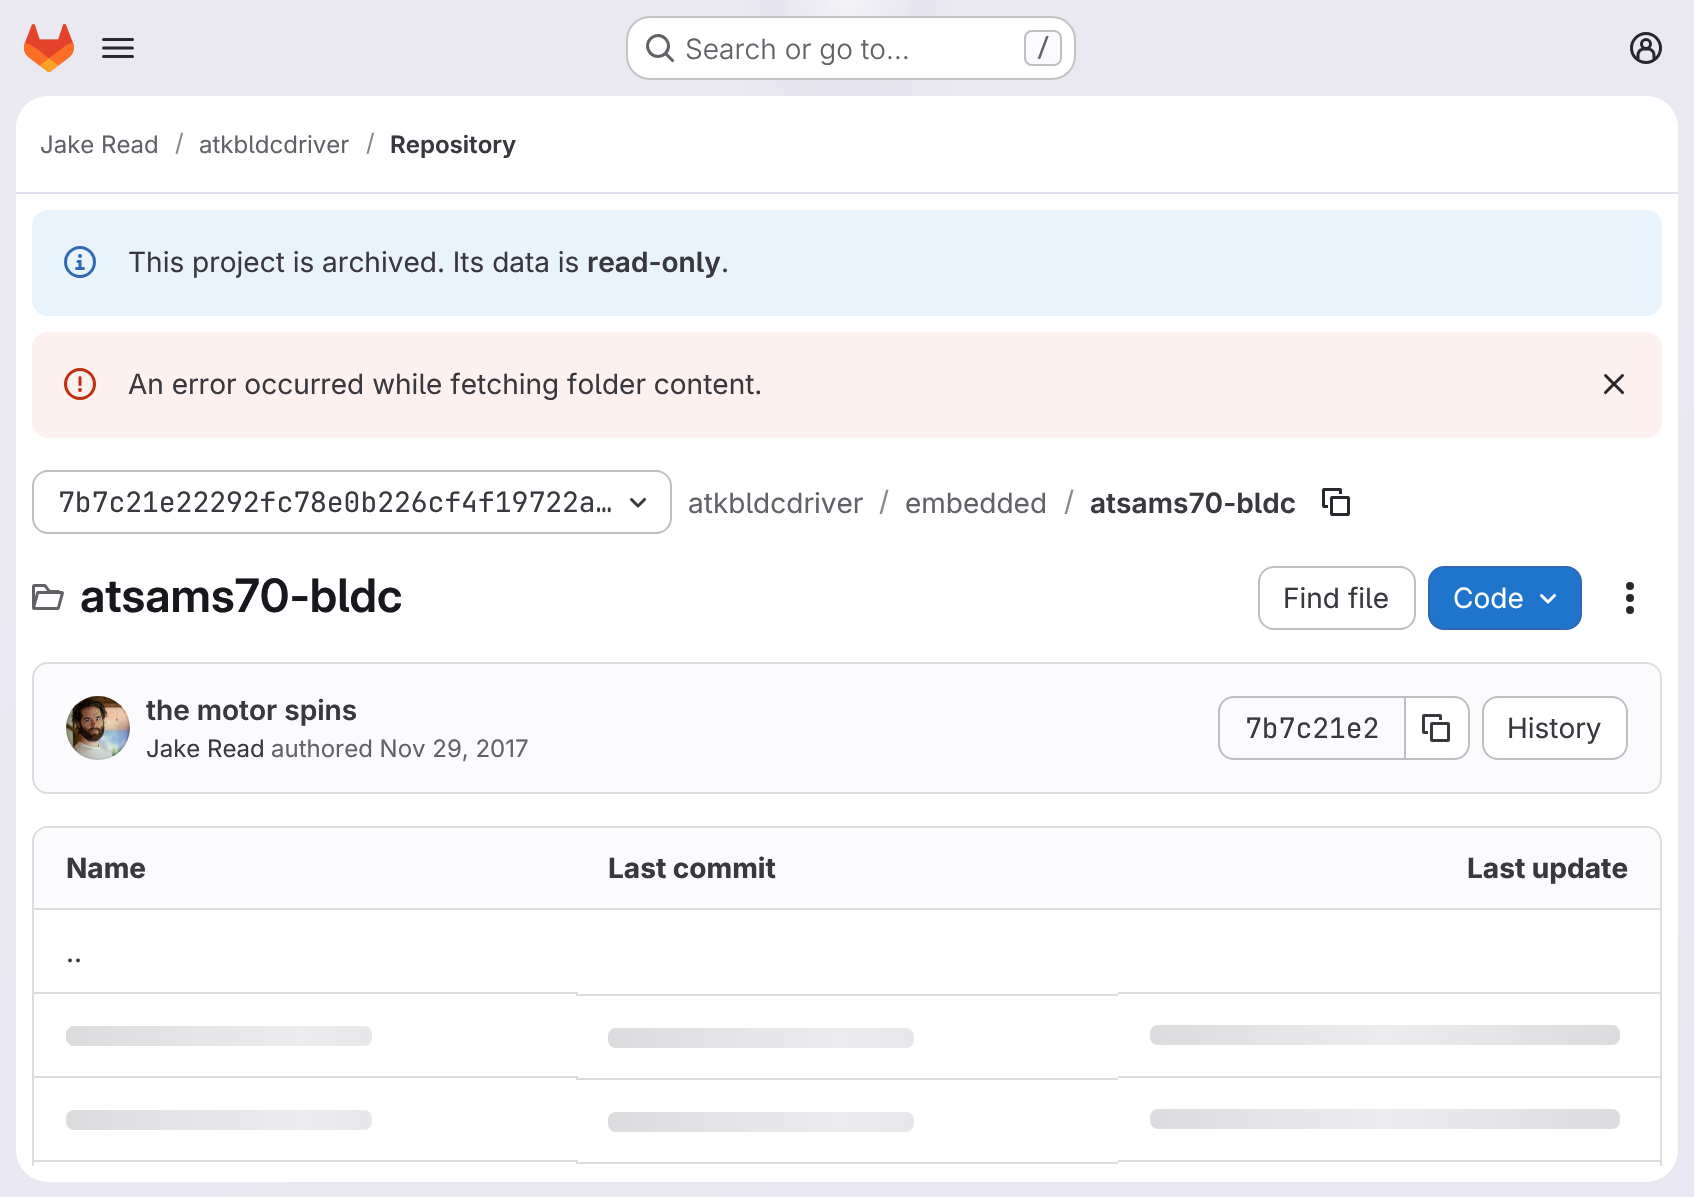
void draw(SkCanvas* canvas) {
    SkPaint paint;
    paint.setAntiAlias(true);
    canvas->clear(0xFFFFFFFF);
    {
        const SkColor colors[] = {0xFFE8E6F0, 0xFFEAE9F2};
        const float stops[] = {0, 0.7f};
        const SkPoint ends[] = {{975, 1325}, {719, -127}};
        paint.setShader(SkGradientShader::MakeLinear(ends, colors, stops, 2, SkTileMode::kClamp));
        paint.setAlpha(255);
    }
    canvas->drawRect(SkRect::MakeXYWH(0, 0, 1694, 1197), paint);
    {
        const SkColor colors[] = {0xFFE4E2ED, 0x00E4E2ED};
        const float stops[] = {0, 0.17f};
        SkMatrix m = SkMatrix::Translate(847, 0).preScale(847, 1198);
        paint.setShader(SkGradientShader::MakeRadial({0, 0}, 1, colors, stops, 2, SkTileMode::kClamp, 0, &m));
        paint.setAlpha(255);
    }
    canvas->drawRect(SkRect::MakeXYWH(743, 0, 208, 96), paint);
    {
        const SkColor colors[] = {0xFFE4E2EC, 0x00E4E2EC};
        const float stops[] = {0, 0.12f};
        SkMatrix m = SkMatrix::Translate(847, 0).preScale(847, 1198);
        paint.setShader(SkGradientShader::MakeRadial({0, 0}, 1, colors, stops, 2, SkTileMode::kClamp, 0, &m));
        paint.setAlpha(255);
    }
    canvas->drawRect(SkRect::MakeXYWH(805, 2, 84, 56), paint);
    {
        const SkColor colors[] = {0x99FFFFFF, 0x00FFFFFF};
        const float stops[] = {0, 0.05f};
        paint.setShader(SkGradientShader::MakeRadial({847, 0}, 1467, colors, stops, 2, SkTileMode::kClamp));
        paint.setAlpha(255);
    }
    canvas->drawRect(SkRect::MakeXYWH(786, 0, 122, 16), paint);
    canvas->drawImageRect(SkImages::DeferredFromEncodedData(SkData::MakeFromFileName("img1.png")), SkRect::MakeXYWH(24, 24, 50, 48), SkSamplingOptions());
    canvas->drawImageRect(SkImages::DeferredFromEncodedData(SkData::MakeFromFileName("img2.png")), SkRect::MakeXYWH(102, 38, 32, 20), SkSamplingOptions());
    paint.setShader(nullptr);
    paint.setColor(0xFFFFFFFF);
    canvas->drawRoundRect(SkRect::MakeXYWH(626, 16, 450, 64), 24, 24, paint);
    paint.setStyle(SkPaint::kStroke_Style);
    paint.setStrokeWidth(2);
    paint.setColor(0x3D050506);
    canvas->drawRoundRect(SkRect::MakeXYWH(627, 17, 448, 62), 23, 23, paint);
    canvas->drawImageRect(SkImages::DeferredFromEncodedData(SkData::MakeFromFileName("img3.png")), SkRect::MakeXYWH(646, 34, 29, 29), SkSamplingOptions());
    SkFont font1(fontMgr->matchFamilyStyle("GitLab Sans", SkFontStyle(300, SkFontStyle::kNormal_Width, SkFontStyle::kUpright_Slant)), 28);
    font1.setSubpixel(true);
    paint.setStyle(SkPaint::kFill_Style);
    paint.setColor(0xFF626168);
    canvas->drawString("Search or go to…", 685, 59, font1, paint);
    paint.setColor(0xFFFBFAFD);
    canvas->drawRoundRect(SkRect::MakeXYWH(1025, 31, 36, 34), 7, 7, paint);
    paint.setStyle(SkPaint::kStroke_Style);
    paint.setColor(0xFFBFBFC3);
    canvas->drawRoundRect(SkRect::MakeXYWH(1025, 31, 36, 34), 7, 7, paint);
    SkFont font2(fontMgr->matchFamilyStyle("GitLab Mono", SkFontStyle(500, SkFontStyle::kNormal_Width, SkFontStyle::kUpright_Slant)), 24);
    font2.setSubpixel(true);
    paint.setStyle(SkPaint::kFill_Style);
    paint.setColor(0xFF626168);
    canvas->drawString("/", 1036, 56, font2, paint);
    canvas->drawImageRect(SkImages::DeferredFromEncodedData(SkData::MakeFromFileName("img4.png")), SkRect::MakeXYWH(1630, 32, 32, 32), SkSamplingOptions());
    paint.setColor(0xFFFFFFFF);
    canvas->drawRoundRect(SkRect::MakeXYWH(16, 96, 1662, 1086), 32, 32, paint);
    canvas->drawPath(SkPathBuilder().moveTo(48, 96).lineTo(1646, 96).cubicTo(1663.5f, 96, 1678, 110.5f, 1678, 128).lineTo(1678, 194).lineTo(16, 194).lineTo(16, 128).cubicTo(16, 110.5f, 30.5f, 96, 48, 96).close().detach(), paint);
    paint.setColor(0xFFE1DFEC);
    canvas->drawRect(SkRect::MakeXYWH(16, 192, 1662, 2), paint);
    SkFont font3(fontMgr->matchFamilyStyle("GitLab Sans", SkFontStyle::Normal()), 24);
    font3.setSubpixel(true);
    paint.setColor(0xFF626168);
    canvas->drawString("Jake Read", 40, 153, font3, paint);
    paint.setColor(0xFF89888D);
    canvas->drawString("/", 175, 151, font3, paint);
    paint.setColor(0xFF626168);
    canvas->drawString("atkbldcdriver", 199, 153, font3, paint);
    paint.setColor(0xFF89888D);
    canvas->drawString("/", 366, 151, font3, paint);
    SkFont font4(fontMgr->matchFamilyStyle("GitLab Sans", SkFontStyle(600, SkFontStyle::kNormal_Width, SkFontStyle::kUpright_Slant)), 24);
    font4.setSubpixel(true);
    paint.setColor(0xFF3A383F);
    canvas->drawString("Repository", 390, 153, font4, paint);
    paint.setColor(0xFFE9F3FC);
    canvas->drawRoundRect(SkRect::MakeXYWH(32, 210, 1630, 106), 16, 16, paint);
    canvas->drawImageRect(SkImages::DeferredFromEncodedData(SkData::MakeFromFileName("img5.png")), SkRect::MakeXYWH(64, 246, 32, 32), SkSamplingOptions());
    SkFont font5(fontMgr->matchFamilyStyle("GitLab Sans", SkFontStyle::Normal()), 28);
    font5.setSubpixel(true);
    paint.setColor(0xFF3A383F);
    canvas->drawString("This project is archived. Its data is", 128, 272, font5, paint);
    SkFont font6(fontMgr->matchFamilyStyle("GitLab Sans", SkFontStyle(600, SkFontStyle::kNormal_Width, SkFontStyle::kUpright_Slant)), 28);
    font6.setSubpixel(true);
    canvas->drawString("read-only", 587, 272, font6, paint);
    canvas->drawString(".", 721, 272, font5, paint);
    paint.setColor(0xFFFCF1EF);
    canvas->drawRoundRect(SkRect::MakeXYWH(32, 332, 1630, 106), 16, 16, paint);
    canvas->drawImageRect(SkImages::DeferredFromEncodedData(SkData::MakeFromFileName("img6.png")), SkRect::MakeXYWH(64, 368, 32, 32), SkSamplingOptions());
    paint.setColor(0xFF3A383F);
    canvas->drawString("An error occurred while fetching folder content.", 128, 394, font5, paint);
    canvas->drawImageRect(SkImages::DeferredFromEncodedData(SkData::MakeFromFileName("img7.png")), SkRect::MakeXYWH(1603, 374, 22, 21), SkSamplingOptions());
    paint.setStyle(SkPaint::kStroke_Style);
    paint.setColor(0xFFBFBFC3);
    canvas->drawRoundRect(SkRect::MakeXYWH(33, 471, 638, 62), 15, 15, paint);
    SkFont font7(fontMgr->matchFamilyStyle("GitLab Mono", SkFontStyle::Normal()), 28);
    font7.setSubpixel(true);
    paint.setStyle(SkPaint::kFill_Style);
    paint.setColor(0xFF3A383F);
    canvas->drawString("7b7c21e22292fc78e0b226cf4f19722a…", 58, 512, font7, paint);
    canvas->drawImageRect(SkImages::DeferredFromEncodedData(SkData::MakeFromFileName("img8.png")), SkRect::MakeXYWH(630, 497, 17, 11), SkSamplingOptions());
    paint.setColor(0xFF626168);
    canvas->drawString("atkbldcdriver", 688, 513, font5, paint);
    paint.setColor(0xFF89888D);
    canvas->drawString("/", 879, 511, font5, paint);
    paint.setColor(0xFF626168);
    canvas->drawString("embedded", 905, 513, font5, paint);
    paint.setColor(0xFF89888D);
    canvas->drawString("/", 1064, 511, font5, paint);
    paint.setColor(0xFF3A383F);
    canvas->drawString("atsams70-bldc", 1090, 513, font6, paint);
    canvas->drawImageRect(SkImages::DeferredFromEncodedData(SkData::MakeFromFileName("img9.png")), SkRect::MakeXYWH(1322, 488, 28, 28), SkSamplingOptions());
    canvas->drawImageRect(SkImages::DeferredFromEncodedData(SkData::MakeFromFileName("img10.png")), SkRect::MakeXYWH(32, 584, 32, 26), SkSamplingOptions());
    SkFont font8(fontMgr->matchFamilyStyle("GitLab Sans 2", SkFontStyle(600, SkFontStyle::kNormal_Width, SkFontStyle::kUpright_Slant)), 46);
    font8.setSubpixel(true);
    paint.setColor(0xFF18171D);
    canvas->drawString("atsams70-bldc", 80, 612, font8, paint);
    paint.setStyle(SkPaint::kStroke_Style);
    paint.setColor(0xFFBFBFC3);
    canvas->drawRoundRect(SkRect::MakeXYWH(1259, 567, 156, 62), 15, 15, paint);
    paint.setStyle(SkPaint::kFill_Style);
    paint.setColor(0xFF3A383F);
    canvas->drawString("Find file", 1283, 608, font5, paint);
    paint.setColor(0xFF1F75CB);
    canvas->drawRoundRect(SkRect::MakeXYWH(1429, 567, 152, 62), 15, 15, paint);
    paint.setStyle(SkPaint::kStroke_Style);
    paint.setColor(0xFF2F68B4);
    canvas->drawRoundRect(SkRect::MakeXYWH(1429, 567, 152, 62), 15, 15, paint);
    paint.setStyle(SkPaint::kFill_Style);
    paint.setColor(0xFFFFFFFF);
    canvas->drawString("Code", 1453, 608, font5, paint);
    canvas->drawImageRect(SkImages::DeferredFromEncodedData(SkData::MakeFromFileName("img11.png")), SkRect::MakeXYWH(1540, 593, 17, 11), SkSamplingOptions());
    canvas->drawImageRect(SkImages::DeferredFromEncodedData(SkData::MakeFromFileName("img12.png")), SkRect::MakeXYWH(1626, 582, 8, 32), SkSamplingOptions());
    paint.setColor(0xFFFBFAFD);
    canvas->drawRoundRect(SkRect::MakeXYWH(33, 663, 1628, 130), 15, 15, paint);
    paint.setStyle(SkPaint::kStroke_Style);
    paint.setColor(0xFFDCDCDE);
    canvas->drawRoundRect(SkRect::MakeXYWH(33, 663, 1628, 130), 15, 15, paint);
    canvas->drawImageRect(SkImages::DeferredFromEncodedData(SkData::MakeFromFileName("img13.png")), SkRect::MakeXYWH(66, 696, 64, 64), SkSamplingOptions());
    paint.setColor(0x14050506);
    canvas->drawCircle(98, 728, 31, paint);
    paint.setStyle(SkPaint::kFill_Style);
    paint.setColor(0xFF3A383F);
    canvas->drawString("the motor spins", 146, 720, font6, paint);
    canvas->drawString("Jake Read", 146, 757, font3, paint);
    paint.setColor(0xFF626168);
    canvas->drawString("authored Nov 29, 2017", 271, 757, font3, paint);
    paint.setColor(0xFFBFBFC3);
    canvas->drawPath(SkPathBuilder(SkPathFillType::kEvenOdd).moveTo(1234, 696).lineTo(1404, 696).lineTo(1404, 760).lineTo(1234, 760).cubicTo(1225, 760, 1218, 753, 1218, 744).lineTo(1218, 712).cubicTo(1218, 703, 1225, 696, 1234, 696).close().moveTo(1234, 698).lineTo(1404, 698).lineTo(1404, 758).lineTo(1234, 758).cubicTo(1226, 758, 1220, 752, 1220, 744).lineTo(1220, 712).cubicTo(1220, 704, 1226, 698, 1234, 698).close().detach(), paint);
    paint.setColor(0xFF3A383F);
    canvas->drawString("7b7c21e2", 1245, 738, font7, paint);
    paint.setColor(0xFFFFFFFF);
    canvas->drawPath(SkPathBuilder().moveTo(1406, 698).lineTo(1454, 698).cubicTo(1461.5f, 698, 1468, 704.5f, 1468, 712).lineTo(1468, 744).cubicTo(1468, 751.5f, 1461.5f, 758, 1454, 758).lineTo(1406, 758).close().detach(), paint);
    paint.setColor(0xFFBFBFC3);
    canvas->drawPath(SkPathBuilder(SkPathFillType::kEvenOdd).moveTo(1406, 696).lineTo(1454, 696).cubicTo(1463, 696, 1470, 703, 1470, 712).lineTo(1470, 744).cubicTo(1470, 753, 1463, 760, 1454, 760).lineTo(1406, 760).close().moveTo(1406, 698).lineTo(1454, 698).cubicTo(1462, 698, 1468, 704, 1468, 712).lineTo(1468, 744).cubicTo(1468, 752, 1462, 758, 1454, 758).lineTo(1406, 758).close().detach(), paint);
    canvas->drawRect(SkRect::MakeXYWH(1404, 696, 2, 64), paint);
    canvas->drawImageRect(SkImages::DeferredFromEncodedData(SkData::MakeFromFileName("img14.png")), SkRect::MakeXYWH(1422, 714, 28, 28), SkSamplingOptions());
    paint.setColor(0xFFFFFFFF);
    canvas->drawRoundRect(SkRect::MakeXYWH(1483, 697, 144, 62), 15, 15, paint);
    paint.setStyle(SkPaint::kStroke_Style);
    paint.setColor(0xFFBFBFC3);
    canvas->drawRoundRect(SkRect::MakeXYWH(1483, 697, 144, 62), 15, 15, paint);
    paint.setStyle(SkPaint::kFill_Style);
    paint.setColor(0xFF3A383F);
    canvas->drawString("History", 1507, 738, font5, paint);
    canvas->save();
    canvas->clipRect(SkRect::MakeXYWH(16, 194, 1662, 972));
    paint.setColor(0xFFDCDCDE);
    canvas->drawPath(SkPathBuilder().moveTo(48, 826).cubicTo(39, 826, 32, 833, 32, 842).lineTo(32, 1178).lineTo(34, 1179).lineTo(34, 842).cubicTo(34, 834, 40, 828, 48, 828).lineTo(1646, 828).cubicTo(1654, 828, 1660, 834, 1660, 842).lineTo(1660, 1179).lineTo(1662, 1178).lineTo(1662, 842).cubicTo(1662, 833, 1655, 826, 1646, 826).close().detach(), paint);
    canvas->restore();
    paint.setColor(0xFFFBFAFD);
    canvas->drawPath(SkPathBuilder().moveTo(48, 828).lineTo(576, 828).lineTo(576, 910).lineTo(34, 910).lineTo(34, 842).cubicTo(34, 834.5f, 40.5f, 828, 48, 828).close().detach(), paint);
    SkFont font9(fontMgr->matchFamilyStyle("GitLab Sans", SkFontStyle::Bold()), 28);
    font9.setSubpixel(true);
    paint.setColor(0xFF3A383F);
    canvas->drawString("Name", 66, 878, font9, paint);
    paint.setColor(0xFFFBFAFD);
    canvas->drawRect(SkRect::MakeXYWH(576, 828, 542, 80), paint);
    paint.setColor(0xFF3A383F);
    canvas->drawString("Last commit", 608, 878, font9, paint);
    paint.setColor(0xFFFBFAFD);
    canvas->drawPath(SkPathBuilder().moveTo(1118, 828).lineTo(1646, 828).cubicTo(1653.5f, 828, 1660, 834.5f, 1660, 842).lineTo(1660, 910).lineTo(1118, 910).close().detach(), paint);
    paint.setColor(0xFF3A383F);
    canvas->drawString("Last update", 1467, 878, font9, paint);
    paint.setColor(0xFFDCDCDE);
    canvas->drawRect(SkRect::MakeXYWH(34, 908, 1626, 2), paint);
    paint.setColor(0xFF3A383F);
    canvas->drawString("..", 66, 962, font5, paint);
    paint.setColor(0xFFDCDCDE);
    canvas->drawRect(SkRect::MakeXYWH(34, 992, 544, 2), paint);
    {
        const SkColor colors[] = {0xFFDCDCDE, 0xFFECECEF, 0xFFDCDCDE};
        const float stops[] = {0, 0.5f, 1};
        const SkPoint ends[] = {{66, 1026}, {536, 1026}};
        paint.setShader(SkGradientShader::MakeLinear(ends, colors, stops, 3, SkTileMode::kClamp));
        paint.setAlpha(255);
    }
    canvas->drawRoundRect(SkRect::MakeXYWH(66, 1026, 306, 20), 8, 8, paint);
    paint.setShader(nullptr);
    paint.setColor(0xFFDCDCDE);
    canvas->drawRect(SkRect::MakeXYWH(576, 994, 542, 2), paint);
    {
        const SkColor colors[] = {0xFFDCDCDE, 0xFFECECEF, 0xFFDCDCDE};
        const float stops[] = {0, 0.5f, 1};
        const SkPoint ends[] = {{608, 1028}, {1078, 1028}};
        paint.setShader(SkGradientShader::MakeLinear(ends, colors, stops, 3, SkTileMode::kClamp));
        paint.setAlpha(255);
    }
    canvas->drawRoundRect(SkRect::MakeXYWH(608, 1028, 306, 20), 8, 8, paint);
    paint.setShader(nullptr);
    paint.setColor(0xFFDCDCDE);
    canvas->drawRect(SkRect::MakeXYWH(1118, 992, 542, 2), paint);
    {
        const SkColor colors[] = {0xFFDCDCDE, 0xFFECECEF, 0xFFDCDCDE};
        const float stops[] = {0, 0.5f, 1};
        const SkPoint ends[] = {{1150, 1025}, {1620, 1025}};
        paint.setShader(SkGradientShader::MakeLinear(ends, colors, stops, 3, SkTileMode::kClamp));
        paint.setAlpha(255);
    }
    canvas->drawRoundRect(SkRect::MakeXYWH(1150, 1025, 470, 20), 8, 8, paint);
    paint.setShader(nullptr);
    paint.setColor(0xFFDCDCDE);
    canvas->drawRect(SkRect::MakeXYWH(34, 1076, 544, 2), paint);
    {
        const SkColor colors[] = {0xFFDCDCDE, 0xFFECECEF, 0xFFDCDCDE};
        const float stops[] = {0, 0.5f, 1};
        const SkPoint ends[] = {{66, 1110}, {536, 1110}};
        paint.setShader(SkGradientShader::MakeLinear(ends, colors, stops, 3, SkTileMode::kClamp));
        paint.setAlpha(255);
    }
    canvas->drawRoundRect(SkRect::MakeXYWH(66, 1110, 306, 20), 8, 8, paint);
    paint.setShader(nullptr);
    paint.setColor(0xFFDCDCDE);
    canvas->drawRect(SkRect::MakeXYWH(576, 1078, 542, 2), paint);
    {
        const SkColor colors[] = {0xFFDCDCDE, 0xFFECECEF, 0xFFDCDCDE};
        const float stops[] = {0, 0.5f, 1};
        const SkPoint ends[] = {{608, 1112}, {1078, 1112}};
        paint.setShader(SkGradientShader::MakeLinear(ends, colors, stops, 3, SkTileMode::kClamp));
        paint.setAlpha(255);
    }
    canvas->drawRoundRect(SkRect::MakeXYWH(608, 1112, 306, 20), 8, 8, paint);
    paint.setShader(nullptr);
    paint.setColor(0xFFDCDCDE);
    canvas->drawRect(SkRect::MakeXYWH(1118, 1076, 542, 2), paint);
    {
        const SkColor colors[] = {0xFFDCDCDE, 0xFFECECEF, 0xFFDCDCDE};
        const float stops[] = {0, 0.5f, 1};
        const SkPoint ends[] = {{1150, 1109}, {1620, 1109}};
        paint.setShader(SkGradientShader::MakeLinear(ends, colors, stops, 3, SkTileMode::kClamp));
        paint.setAlpha(255);
    }
    canvas->drawRoundRect(SkRect::MakeXYWH(1150, 1109, 470, 20), 8, 8, paint);
    paint.setShader(nullptr);
    paint.setColor(0xFFDCDCDE);
    canvas->drawRect(SkRect::MakeXYWH(34, 1160, 544, 2), paint);
    canvas->drawRect(SkRect::MakeXYWH(1118, 1160, 542, 2), paint);
    canvas->drawRect(SkRect::MakeXYWH(576, 1162, 542, 2), paint);
}
